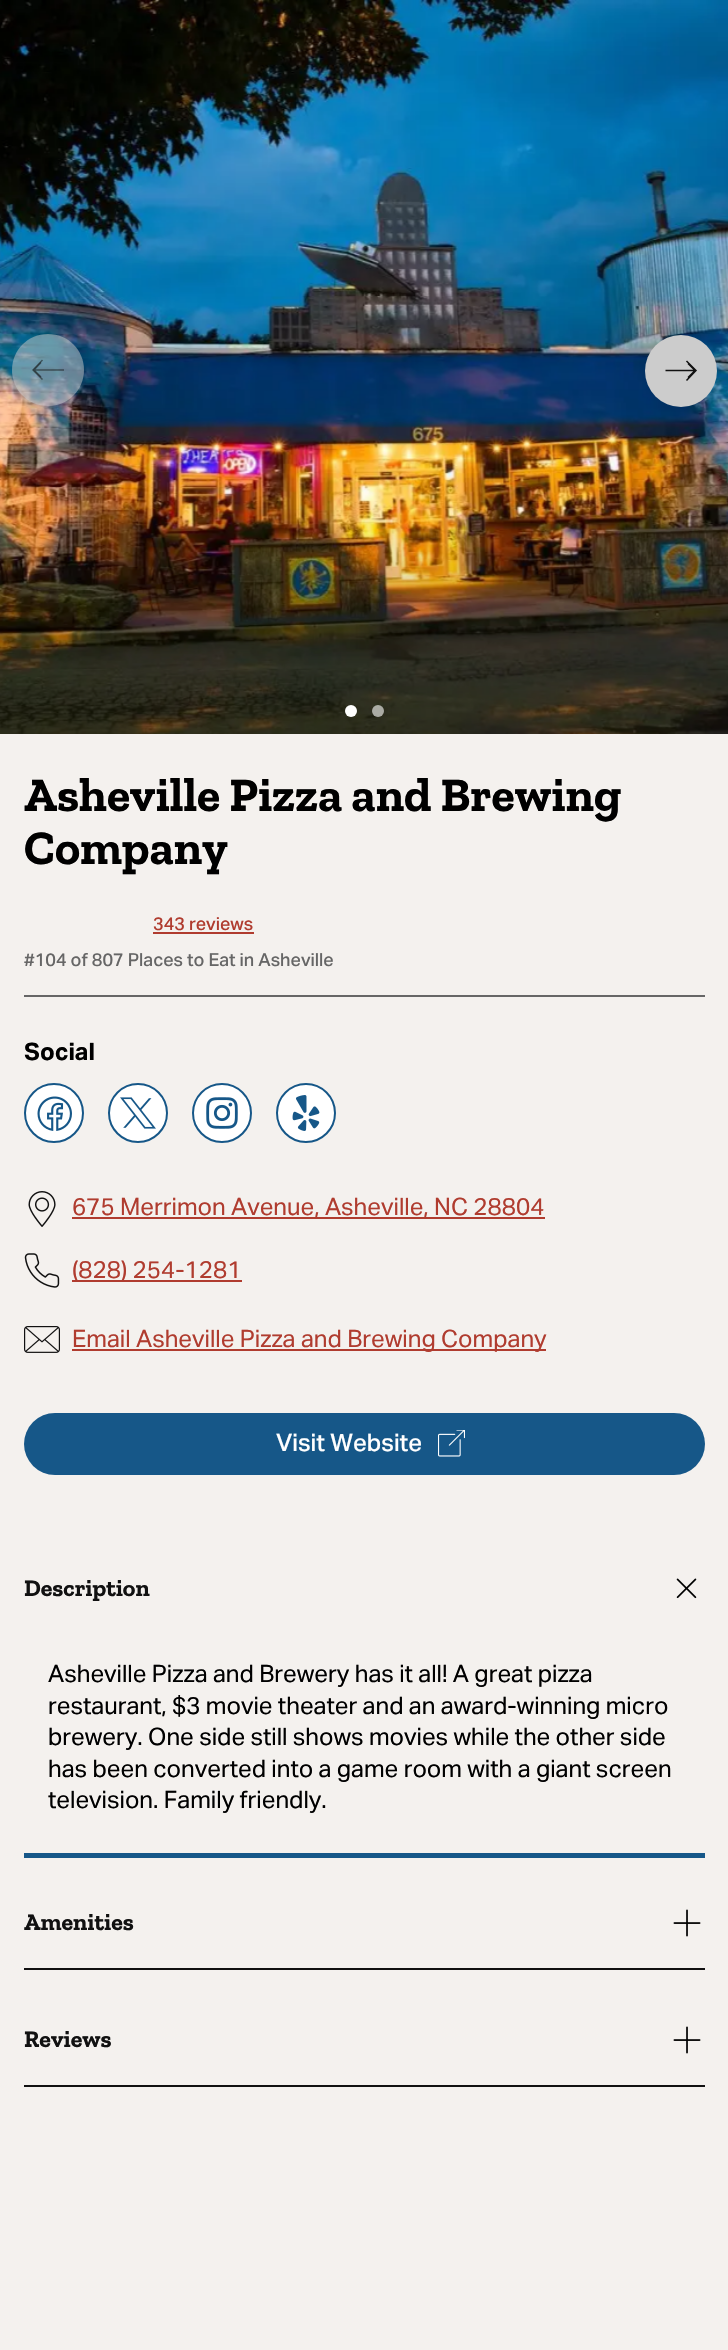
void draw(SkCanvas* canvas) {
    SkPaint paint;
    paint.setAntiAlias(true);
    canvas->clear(0xFFF4F1EE);
    canvas->drawImageRect(SkImages::DeferredFromEncodedData(SkData::MakeFromFileName("img1.png")), SkRect::MakeXYWH(0, 0, 728, 734), SkSamplingOptions());
    paint.setColor(0x80CCCCCC);
    canvas->drawPath(SkPathBuilder().moveTo(48, 406).cubicTo(28, 406, 12, 390, 12, 370).cubicTo(12, 350, 28, 334, 48, 334).cubicTo(68, 334, 84, 350, 84, 370).cubicTo(84, 390, 68, 406, 48, 406).close().detach(), paint);
    paint.setColor(0x61111111);
    canvas->drawRect(SkRect::MakeXYWH(35, 369, 29, 2), paint);
    paint.setStyle(SkPaint::kStroke_Style);
    paint.setStrokeWidth(1.5f);
    paint.setColor(0x80111111);
    canvas->drawPath(SkPathBuilder().moveTo(41, 377).lineTo(34, 370).lineTo(41, 362.5f).detach(), paint);
    canvas->drawPath(SkPathBuilder().moveTo(42.5f, 379.5f).lineTo(33, 370).lineTo(42.5f, 360).detach(), paint);
    paint.setStyle(SkPaint::kFill_Style);
    paint.setColor(0xFFCCCCCC);
    canvas->drawCircle(681, 371, 36, paint);
    paint.setStyle(SkPaint::kStroke_Style);
    paint.setColor(0xFF111111);
    canvas->drawPath(SkPathBuilder().moveTo(665.5f, 370.5f).lineTo(694.5f, 370.5f).moveTo(688, 363.5f).lineTo(695, 370.5f).lineTo(688, 377.5f).moveTo(686.5f, 361).lineTo(696, 370.5f).lineTo(686.5f, 380.5f).detach(), paint);
    paint.setStyle(SkPaint::kFill_Style);
    paint.setColor(0xFFFFFFFF);
    canvas->drawCircle(351, 711, 6, paint);
    paint.setColor(0x99FFFFFF);
    canvas->drawCircle(378, 711, 6, paint);
    paint.setColor(0xFF666666);
    canvas->drawRect(SkRect::MakeXYWH(24, 995, 681, 2), paint);
    SkFont font1(fontMgr->matchFamilyStyle("Zilla Slab", SkFontStyle::Bold()), 48);
    font1.setSubpixel(true);
    paint.setColor(0xFF000000);
    canvas->drawString("Asheville Pizza and Brewing", 24, 811, font1, paint);
    canvas->drawString("Company", 24, 864, font1, paint);
    SkFont font2(fontMgr->matchFamilyStyle("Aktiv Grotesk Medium", SkFontStyle(500, SkFontStyle::kNormal_Width, SkFontStyle::kUpright_Slant)), 18);
    font2.setSubpixel(true);
    paint.setColor(0xFFB03C2F);
    canvas->drawString("343 reviews", 153, 930, font2, paint);
    canvas->drawRect(SkRect::MakeXYWH(153, 932, 101, 2), paint);
    paint.setColor(0xFF666666);
    canvas->drawString("#104 of 807 Places to Eat in Asheville", 24, 966, font2, paint);
    SkFont font3(fontMgr->matchFamilyStyle("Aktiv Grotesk", SkFontStyle::Bold()), 24);
    font3.setSubpixel(true);
    paint.setColor(0xFF000000);
    canvas->drawString("Social", 24, 1060, font3, paint);
    paint.setColor(0xFFFFFFFF);
    canvas->drawCircle(54, 1113, 29, paint);
    paint.setStyle(SkPaint::kStroke_Style);
    paint.setStrokeWidth(2);
    paint.setColor(0xFF165788);
    canvas->drawCircle(54, 1113, 29, paint);
    canvas->drawImageRect(SkImages::DeferredFromEncodedData(SkData::MakeFromFileName("img2.png")), SkRect::MakeXYWH(37, 1096, 35, 35), SkSamplingOptions());
    paint.setStyle(SkPaint::kFill_Style);
    paint.setColor(0xFFFFFFFF);
    canvas->drawCircle(138, 1113, 29, paint);
    paint.setStyle(SkPaint::kStroke_Style);
    paint.setColor(0xFF165788);
    canvas->drawCircle(138, 1113, 29, paint);
    canvas->drawImageRect(SkImages::DeferredFromEncodedData(SkData::MakeFromFileName("img3.png")), SkRect::MakeXYWH(120, 1097, 36, 32), SkSamplingOptions());
    paint.setStyle(SkPaint::kFill_Style);
    paint.setColor(0xFFFFFFFF);
    canvas->drawCircle(222, 1113, 29, paint);
    paint.setStyle(SkPaint::kStroke_Style);
    paint.setColor(0xFF165788);
    canvas->drawCircle(222, 1113, 29, paint);
    canvas->drawImageRect(SkImages::DeferredFromEncodedData(SkData::MakeFromFileName("img4.png")), SkRect::MakeXYWH(206, 1097, 32, 32), SkSamplingOptions());
    paint.setStyle(SkPaint::kFill_Style);
    paint.setColor(0xFFFFFFFF);
    canvas->drawCircle(306, 1113, 29, paint);
    paint.setStyle(SkPaint::kStroke_Style);
    paint.setColor(0xFF165788);
    canvas->drawCircle(306, 1113, 29, paint);
    canvas->drawImageRect(SkImages::DeferredFromEncodedData(SkData::MakeFromFileName("img5.png")), SkRect::MakeXYWH(292, 1095, 28, 36), SkSamplingOptions());
    canvas->drawImageRect(SkImages::DeferredFromEncodedData(SkData::MakeFromFileName("img6.png")), SkRect::MakeXYWH(28, 1191, 28, 36), SkSamplingOptions());
    paint.setStyle(SkPaint::kFill_Style);
    paint.setColor(0xFFB03C2F);
    canvas->drawRect(SkRect::MakeXYWH(72, 1217, 473, 2), paint);
    SkFont font4(fontMgr->matchFamilyStyle("Aktiv Grotesk", SkFontStyle::Normal()), 24);
    font4.setSubpixel(true);
    canvas->drawString("675 Merrimon Avenue, Asheville, NC 28804", 72, 1215, font4, paint);
    canvas->drawImageRect(SkImages::DeferredFromEncodedData(SkData::MakeFromFileName("img7.png")), SkRect::MakeXYWH(24, 1253, 36, 35), SkSamplingOptions());
    canvas->drawRect(SkRect::MakeXYWH(72, 1280, 170, 2), paint);
    canvas->drawString("(828) 254-1281", 72, 1278, font4, paint);
    canvas->drawImageRect(SkImages::DeferredFromEncodedData(SkData::MakeFromFileName("img8.png")), SkRect::MakeXYWH(24, 1326, 36, 27), SkSamplingOptions());
    canvas->drawRect(SkRect::MakeXYWH(72, 1349, 474, 2), paint);
    canvas->drawString("Email Asheville Pizza and Brewing Company", 72, 1347, font4, paint);
    paint.setColor(0xFF165788);
    canvas->drawRoundRect(SkRect::MakeXYWH(24, 1413, 681, 62), 31, 31, paint);
    SkFont font5(fontMgr->matchFamilyStyle("Aktiv Grotesk Medium", SkFontStyle(500, SkFontStyle::kNormal_Width, SkFontStyle::kUpright_Slant)), 24);
    font5.setSubpixel(true);
    paint.setColor(0xFFFFFFFF);
    canvas->drawString("Visit Website", 276, 1451, font5, paint);
    canvas->drawImageRect(SkImages::DeferredFromEncodedData(SkData::MakeFromFileName("img9.png")), SkRect::MakeXYWH(438, 1430, 27, 27), SkSamplingOptions());
    paint.setColor(0xFF165788);
    canvas->drawRect(SkRect::MakeXYWH(24, 1853, 681, 5), paint);
    SkFont font6(fontMgr->matchFamilyStyle("Zilla Slab", SkFontStyle::Bold()), 24);
    font6.setSubpixel(true);
    paint.setColor(0xFF111111);
    canvas->drawString("Description", 24, 1596, font6, paint);
    canvas->drawImageRect(SkImages::DeferredFromEncodedData(SkData::MakeFromFileName("img10.png")), SkRect::MakeXYWH(676, 1578, 21, 21), SkSamplingOptions());
    paint.setColor(0xFF000000);
    canvas->drawString("Asheville Pizza and Brewery has it all! A great pizza", 48, 1682, font4, paint);
    canvas->drawString("restaurant, $3 movie theater and an award-winning micro", 48, 1714, font4, paint);
    canvas->drawString("brewery. One side still shows movies while the other side", 48, 1745, font4, paint);
    canvas->drawString("has been converted into a game room with a giant screen", 48, 1777, font4, paint);
    canvas->drawString("television. Family friendly.", 48, 1808, font4, paint);
    paint.setColor(0xFF111111);
    canvas->drawString("Amenities", 24, 1930, font6, paint);
    canvas->drawImageRect(SkImages::DeferredFromEncodedData(SkData::MakeFromFileName("img11.png")), SkRect::MakeXYWH(673, 1909, 28, 28), SkSamplingOptions());
    canvas->drawRect(SkRect::MakeXYWH(24, 1968, 681, 2), paint);
    canvas->drawString("Reviews", 24, 2047, font6, paint);
    canvas->drawImageRect(SkImages::DeferredFromEncodedData(SkData::MakeFromFileName("img11.png")), SkRect::MakeXYWH(673, 2026, 28, 28), SkSamplingOptions());
    canvas->drawRect(SkRect::MakeXYWH(24, 2085, 681, 2), paint);
}
